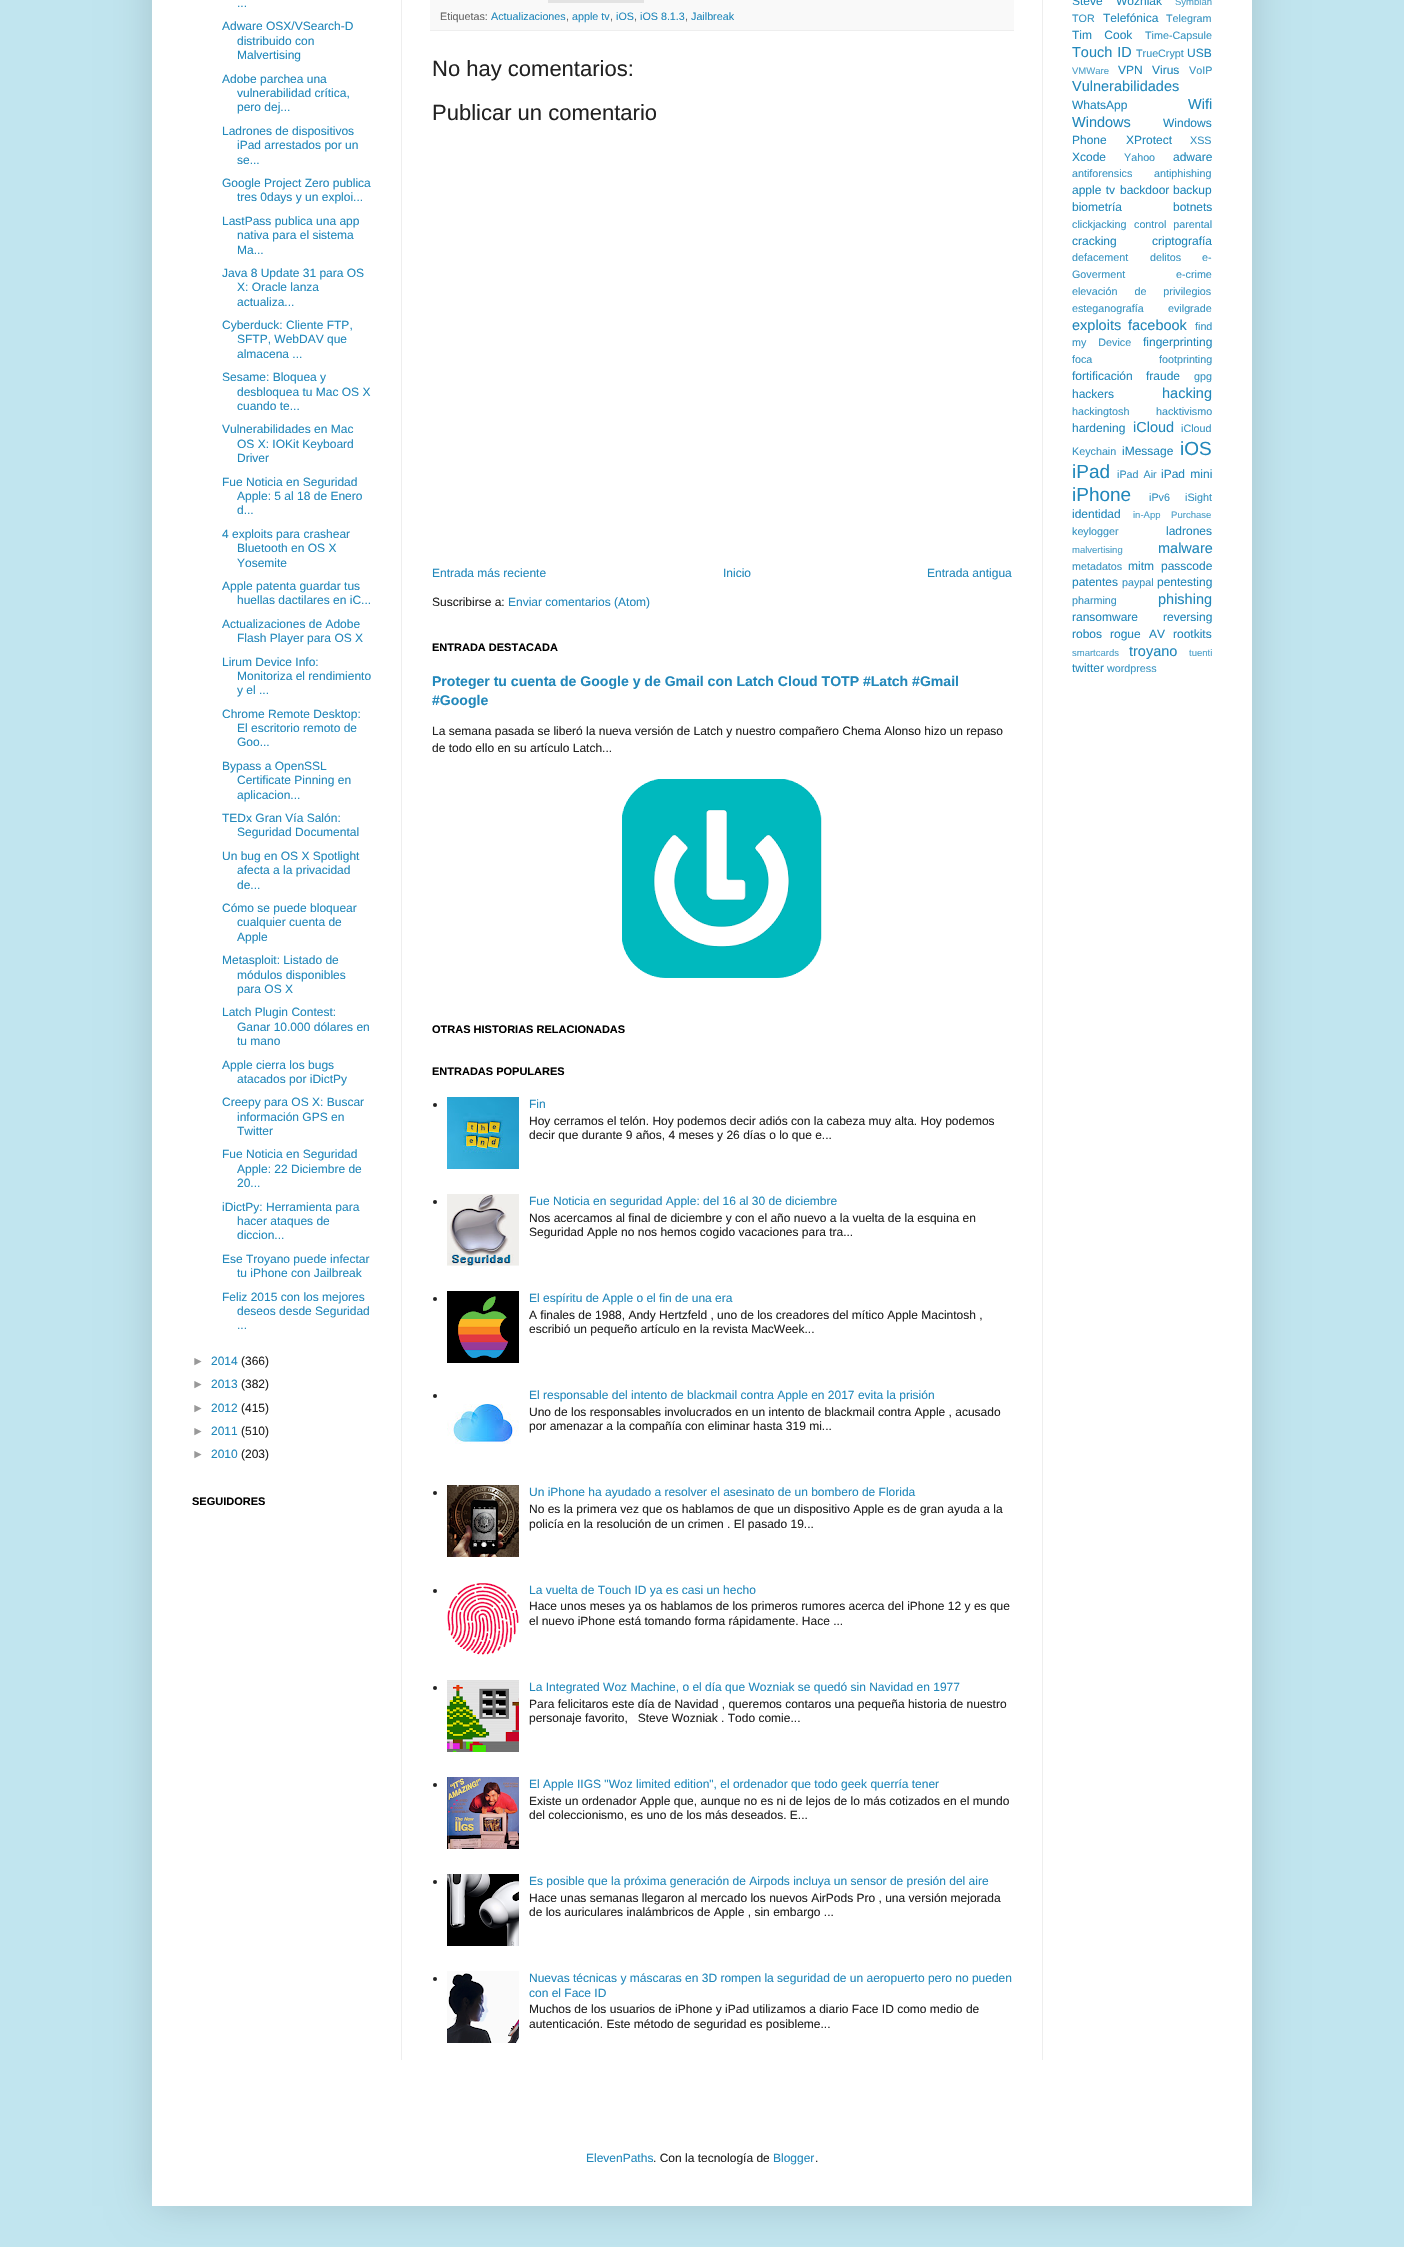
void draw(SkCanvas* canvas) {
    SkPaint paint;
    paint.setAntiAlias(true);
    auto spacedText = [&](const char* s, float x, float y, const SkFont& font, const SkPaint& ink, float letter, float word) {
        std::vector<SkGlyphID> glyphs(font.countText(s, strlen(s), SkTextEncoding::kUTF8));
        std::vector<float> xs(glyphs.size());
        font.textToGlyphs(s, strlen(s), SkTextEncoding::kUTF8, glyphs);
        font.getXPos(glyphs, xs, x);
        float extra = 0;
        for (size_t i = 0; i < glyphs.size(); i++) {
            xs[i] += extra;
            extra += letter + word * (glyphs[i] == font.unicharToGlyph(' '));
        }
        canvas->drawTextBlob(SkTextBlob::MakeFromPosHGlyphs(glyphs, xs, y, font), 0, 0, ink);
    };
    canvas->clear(0xFFC1E5EF);
    paint.setColor(0x26000000);
    paint.setMaskFilter(SkMaskFilter::MakeBlur(kNormal_SkBlurStyle, 20));
    canvas->drawRect(SkRect::MakeXYWH(152, -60, 1100, 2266), paint);
    paint.setMaskFilter(nullptr);
    paint.setColor(0xFFFFFFFF);
    canvas->drawRect(SkRect::MakeXYWH(152, 0, 1100, 2206), paint);
    SkFont font1(fontMgr->matchFamilyStyle("Liberation Sans", SkFontStyle::Normal()), 12);
    font1.setSubpixel(true);
    paint.setColor(0xFF2288BB);
    canvas->drawString("...", 237, 7, font1, paint);
    canvas->drawString("Adware OSX/VSearch-D", 222, 30, font1, paint);
    canvas->drawString("distribuido con", 237, 45, font1, paint);
    canvas->drawString("Malvertising", 237, 59, font1, paint);
    canvas->drawString("Adobe parchea una", 222, 83, font1, paint);
    canvas->drawString("vulnerabilidad crítica,", 237, 97, font1, paint);
    canvas->drawString("pero dej...", 237, 111, font1, paint);
    canvas->drawString("Ladrones de dispositivos", 222, 135, font1, paint);
    canvas->drawString("iPad arrestados por un", 237, 149, font1, paint);
    canvas->drawString("se...", 237, 164, font1, paint);
    canvas->drawString("Google Project Zero publica", 222, 187, font1, paint);
    canvas->drawString("tres 0days y un exploi...", 237, 201, font1, paint);
    canvas->drawString("LastPass publica una app", 222, 225, font1, paint);
    canvas->drawString("nativa para el sistema", 237, 239, font1, paint);
    canvas->drawString("Ma...", 237, 254, font1, paint);
    canvas->drawString("Java 8 Update 31 para OS", 222, 277, font1, paint);
    canvas->drawString("X: Oracle lanza", 237, 291, font1, paint);
    canvas->drawString("actualiza...", 237, 306, font1, paint);
    canvas->drawString("Cyberduck: Cliente FTP,", 222, 329, font1, paint);
    canvas->drawString("SFTP, WebDAV que", 237, 343, font1, paint);
    canvas->drawString("almacena ...", 237, 358, font1, paint);
    canvas->drawString("Sesame: Bloquea y", 222, 381, font1, paint);
    canvas->drawString("desbloquea tu Mac OS X", 237, 396, font1, paint);
    canvas->drawString("cuando te...", 237, 410, font1, paint);
    canvas->drawString("Vulnerabilidades en Mac", 222, 433, font1, paint);
    canvas->drawString("OS X: IOKit Keyboard", 237, 448, font1, paint);
    canvas->drawString("Driver", 237, 462, font1, paint);
    canvas->drawString("Fue Noticia en Seguridad", 222, 486, font1, paint);
    canvas->drawString("Apple: 5 al 18 de Enero", 237, 500, font1, paint);
    canvas->drawString("d...", 237, 514, font1, paint);
    canvas->drawString("4 exploits para crashear", 222, 538, font1, paint);
    canvas->drawString("Bluetooth en OS X", 237, 552, font1, paint);
    canvas->drawString("Yosemite", 237, 567, font1, paint);
    canvas->drawString("Apple patenta guardar tus", 222, 590, font1, paint);
    canvas->drawString("huellas dactilares en iC...", 237, 604, font1, paint);
    canvas->drawString("Actualizaciones de Adobe", 222, 628, font1, paint);
    canvas->drawString("Flash Player para OS X", 237, 642, font1, paint);
    canvas->drawString("Lirum Device Info:", 222, 666, font1, paint);
    canvas->drawString("Monitoriza el rendimiento", 237, 680, font1, paint);
    canvas->drawString("y el ...", 237, 694, font1, paint);
    canvas->drawString("Chrome Remote Desktop:", 222, 718, font1, paint);
    canvas->drawString("El escritorio remoto de", 237, 732, font1, paint);
    canvas->drawString("Goo...", 237, 746, font1, paint);
    canvas->drawString("Bypass a OpenSSL", 222, 770, font1, paint);
    canvas->drawString("Certificate Pinning en", 237, 784, font1, paint);
    canvas->drawString("aplicacion...", 237, 799, font1, paint);
    canvas->drawString("TEDx Gran Vía Salón:", 222, 822, font1, paint);
    canvas->drawString("Seguridad Documental", 237, 836, font1, paint);
    canvas->drawString("Un bug en OS X Spotlight", 222, 860, font1, paint);
    canvas->drawString("afecta a la privacidad", 237, 874, font1, paint);
    canvas->drawString("de...", 237, 889, font1, paint);
    canvas->drawString("Cómo se puede bloquear", 222, 912, font1, paint);
    canvas->drawString("cualquier cuenta de", 237, 926, font1, paint);
    canvas->drawString("Apple", 237, 941, font1, paint);
    canvas->drawString("Metasploit: Listado de", 222, 964, font1, paint);
    canvas->drawString("módulos disponibles", 237, 979, font1, paint);
    canvas->drawString("para OS X", 237, 993, font1, paint);
    canvas->drawString("Latch Plugin Contest:", 222, 1016, font1, paint);
    canvas->drawString("Ganar 10.000 dólares en", 237, 1031, font1, paint);
    canvas->drawString("tu mano", 237, 1045, font1, paint);
    canvas->drawString("Apple cierra los bugs", 222, 1069, font1, paint);
    canvas->drawString("atacados por iDictPy", 237, 1083, font1, paint);
    canvas->drawString("Creepy para OS X: Buscar", 222, 1106, font1, paint);
    canvas->drawString("información GPS en", 237, 1121, font1, paint);
    canvas->drawString("Twitter", 237, 1135, font1, paint);
    canvas->drawString("Fue Noticia en Seguridad", 222, 1158, font1, paint);
    canvas->drawString("Apple: 22 Diciembre de", 237, 1173, font1, paint);
    canvas->drawString("20...", 237, 1187, font1, paint);
    canvas->drawString("iDictPy: Herramienta para", 222, 1211, font1, paint);
    canvas->drawString("hacer ataques de", 237, 1225, font1, paint);
    canvas->drawString("diccion...", 237, 1239, font1, paint);
    canvas->drawString("Ese Troyano puede infectar", 222, 1263, font1, paint);
    canvas->drawString("tu iPhone con Jailbreak", 237, 1277, font1, paint);
    canvas->drawString("Feliz 2015 con los mejores", 222, 1301, font1, paint);
    canvas->drawString("deseos desde Seguridad", 237, 1315, font1, paint);
    canvas->drawString("...", 237, 1329, font1, paint);
    paint.setColor(0xFF999999);
    canvas->drawString("►", 192, 1365, font1, paint);
    paint.setColor(0xFF2288BB);
    canvas->drawString("2014", 211, 1365, font1, paint);
    paint.setColor(0xFF222222);
    canvas->drawString("(366)", 241, 1365, font1, paint);
    paint.setColor(0xFF999999);
    canvas->drawString("►", 192, 1388, font1, paint);
    paint.setColor(0xFF2288BB);
    canvas->drawString("2013", 211, 1388, font1, paint);
    paint.setColor(0xFF222222);
    canvas->drawString("(382)", 241, 1388, font1, paint);
    paint.setColor(0xFF999999);
    canvas->drawString("►", 192, 1412, font1, paint);
    paint.setColor(0xFF2288BB);
    canvas->drawString("2012", 211, 1412, font1, paint);
    paint.setColor(0xFF222222);
    canvas->drawString("(415)", 241, 1412, font1, paint);
    paint.setColor(0xFF999999);
    canvas->drawString("►", 192, 1435, font1, paint);
    paint.setColor(0xFF2288BB);
    canvas->drawString("2011", 211, 1435, font1, paint);
    paint.setColor(0xFF222222);
    canvas->drawString("(510)", 241, 1435, font1, paint);
    paint.setColor(0xFF999999);
    canvas->drawString("►", 192, 1458, font1, paint);
    paint.setColor(0xFF2288BB);
    canvas->drawString("2010", 211, 1458, font1, paint);
    paint.setColor(0xFF222222);
    canvas->drawString("(203)", 241, 1458, font1, paint);
    SkFont font2(fontMgr->matchFamilyStyle("Liberation Sans", SkFontStyle::Bold()), 11);
    font2.setSubpixel(true);
    paint.setColor(0xFF000000);
    canvas->drawString("SEGUIDORES", 192, 1505, font2, paint);
    paint.setColor(0xFFF9F9F9);
    canvas->drawRect(SkRect::MakeXYWH(430, 0, 584, 30), paint);
    paint.setColor(0xFFEEEEEE);
    canvas->drawRect(SkRect::MakeXYWH(430, 30, 584, 1), paint);
    paint.setColor(0xFFE3E3E3);
    canvas->drawRect(SkRect::MakeXYWH(548, 0, 96, 3), paint);
    SkFont font3(fontMgr->matchFamilyStyle("Liberation Sans", SkFontStyle::Normal()), 10.75f);
    font3.setSubpixel(true);
    paint.setColor(0xFF666666);
    canvas->drawString("Etiquetas:", 440, 20, font3, paint);
    paint.setColor(0xFF2288BB);
    canvas->drawString("Actualizaciones", 491, 20, font3, paint);
    paint.setColor(0xFF666666);
    canvas->drawString(",", 566, 20, font3, paint);
    paint.setColor(0xFF2288BB);
    canvas->drawString("apple tv", 572, 20, font3, paint);
    paint.setColor(0xFF666666);
    canvas->drawString(",", 610, 20, font3, paint);
    paint.setColor(0xFF2288BB);
    canvas->drawString("iOS", 616, 20, font3, paint);
    paint.setColor(0xFF666666);
    canvas->drawString(",", 634, 20, font3, paint);
    paint.setColor(0xFF2288BB);
    canvas->drawString("iOS 8.1.3", 640, 20, font3, paint);
    paint.setColor(0xFF666666);
    canvas->drawString(",", 685, 20, font3, paint);
    paint.setColor(0xFF2288BB);
    canvas->drawString("Jailbreak", 691, 20, font3, paint);
    SkFont font4(fontMgr->matchFamilyStyle("Liberation Sans", SkFontStyle::Normal()), 22);
    font4.setSubpixel(true);
    paint.setColor(0xFF222222);
    canvas->drawString("No hay comentarios:", 432, 76, font4, paint);
    canvas->drawString("Publicar un comentario", 432, 120, font4, paint);
    paint.setColor(0xFF2288BB);
    canvas->drawString("Entrada más reciente", 432, 577, font1, paint);
    canvas->drawString("Inicio", 723, 577, font1, paint);
    canvas->drawString("Entrada antigua", 927, 577, font1, paint);
    paint.setColor(0xFF222222);
    canvas->drawString("Suscribirse a:", 432, 606, font1, paint);
    paint.setColor(0xFF2288BB);
    canvas->drawString("Enviar comentarios (Atom)", 508, 606, font1, paint);
    paint.setColor(0xFF000000);
    canvas->drawString("ENTRADA DESTACADA", 432, 651, font2, paint);
    SkFont font5(fontMgr->matchFamilyStyle("Liberation Sans", SkFontStyle::Bold()), 14.05f);
    font5.setSubpixel(true);
    paint.setColor(0xFF2288BB);
    canvas->drawString("Proteger tu cuenta de Google y de Gmail con Latch Cloud TOTP #Latch #Gmail", 432, 686, font5, paint);
    canvas->drawString("#Google", 432, 705, font5, paint);
    paint.setColor(0xFF222222);
    canvas->drawString("La semana pasada se liberó la nueva versión de Latch y nuestro compañero Chema Alonso hizo un repaso", 432, 735, font1, paint);
    canvas->drawString("de todo ello en su artículo Latch...", 432, 752, font1, paint);
    canvas->drawImageRect(SkImages::DeferredFromEncodedData(SkData::MakeFromFileName("img1.png")), SkRect::MakeXYWH(622, 779, 200, 199), SkSamplingOptions());
    paint.setColor(0xFF000000);
    canvas->drawString("OTRAS HISTORIAS RELACIONADAS", 432, 1033, font2, paint);
    canvas->drawString("ENTRADAS POPULARES", 432, 1075, font2, paint);
    paint.setColor(0xFF222222);
    canvas->drawCircle(435, 1105, 2, paint);
    canvas->drawImageRect(SkImages::DeferredFromEncodedData(SkData::MakeFromFileName("img2.png")), SkRect::MakeXYWH(447, 1097, 72, 72), SkSamplingOptions());
    paint.setColor(0xFF2288BB);
    canvas->drawString("Fin", 529, 1108, font1, paint);
    paint.setColor(0xFF222222);
    canvas->drawString("Hoy cerramos el telón. Hoy podemos decir adiós con la cabeza muy alta. Hoy podemos", 529, 1125, font1, paint);
    canvas->drawString("decir que durante 9 años, 4 meses y 26 días o lo que e...", 529, 1139, font1, paint);
    canvas->drawCircle(435, 1202, 2, paint);
    canvas->drawImageRect(SkImages::DeferredFromEncodedData(SkData::MakeFromFileName("img3.png")), SkRect::MakeXYWH(447, 1194, 72, 72), SkSamplingOptions());
    paint.setColor(0xFF2288BB);
    canvas->drawString("Fue Noticia en seguridad Apple: del 16 al 30 de diciembre", 529, 1205, font1, paint);
    paint.setColor(0xFF222222);
    canvas->drawString("Nos acercamos al final de diciembre y con el año nuevo a la vuelta de la esquina en", 529, 1222, font1, paint);
    canvas->drawString("Seguridad Apple no nos hemos cogido vacaciones para tra...", 529, 1236, font1, paint);
    canvas->drawCircle(435, 1299, 2, paint);
    canvas->drawImageRect(SkImages::DeferredFromEncodedData(SkData::MakeFromFileName("img4.png")), SkRect::MakeXYWH(447, 1291, 72, 72), SkSamplingOptions());
    paint.setColor(0xFF2288BB);
    canvas->drawString("El espíritu de Apple o el fin de una era", 529, 1302, font1, paint);
    paint.setColor(0xFF222222);
    canvas->drawString("A finales de 1988, Andy Hertzfeld , uno de los creadores del mítico Apple Macintosh ,", 529, 1319, font1, paint);
    canvas->drawString("escribió un pequeño artículo en la revista MacWeek...", 529, 1333, font1, paint);
    canvas->drawCircle(435, 1396, 2, paint);
    paint.setColor(0xFF2288BB);
    canvas->drawString("El responsable del intento de blackmail contra Apple en 2017 evita la prisión", 529, 1399, font1, paint);
    canvas->drawImageRect(SkImages::DeferredFromEncodedData(SkData::MakeFromFileName("img5.png")), SkRect::MakeXYWH(447, 1404, 72, 40), SkSamplingOptions());
    paint.setColor(0xFF222222);
    canvas->drawString("Uno de los responsables involucrados en un intento de blackmail contra Apple , acusado", 529, 1416, font1, paint);
    canvas->drawString("por amenazar a la compañía con eliminar hasta 319 mi...", 529, 1430, font1, paint);
    canvas->drawCircle(435, 1493, 2, paint);
    canvas->drawImageRect(SkImages::DeferredFromEncodedData(SkData::MakeFromFileName("img6.png")), SkRect::MakeXYWH(447, 1485, 72, 72), SkSamplingOptions());
    paint.setColor(0xFF2288BB);
    canvas->drawString("Un iPhone ha ayudado a resolver el asesinato de un bombero de Florida", 529, 1496, font1, paint);
    paint.setColor(0xFF222222);
    canvas->drawString("No es la primera vez que os hablamos de que un dispositivo Apple es de gran ayuda a la", 529, 1513, font1, paint);
    canvas->drawString("policía en la resolución de un crimen . El pasado 19...", 529, 1528, font1, paint);
    canvas->drawCircle(435, 1591, 2, paint);
    canvas->drawImageRect(SkImages::DeferredFromEncodedData(SkData::MakeFromFileName("img7.png")), SkRect::MakeXYWH(447, 1583, 72, 72), SkSamplingOptions());
    paint.setColor(0xFF2288BB);
    canvas->drawString("La vuelta de Touch ID ya es casi un hecho", 529, 1594, font1, paint);
    paint.setColor(0xFF222222);
    canvas->drawString("Hace unos meses ya os hablamos de los primeros rumores acerca del iPhone 12 y es que", 529, 1610, font1, paint);
    canvas->drawString("el nuevo iPhone está tomando forma rápidamente. Hace ...", 529, 1625, font1, paint);
    canvas->drawCircle(435, 1688, 2, paint);
    canvas->drawImageRect(SkImages::DeferredFromEncodedData(SkData::MakeFromFileName("img8.png")), SkRect::MakeXYWH(447, 1680, 72, 72), SkSamplingOptions());
    paint.setColor(0xFF2288BB);
    canvas->drawString("La Integrated Woz Machine, o el día que Wozniak se quedó sin Navidad en 1977", 529, 1691, font1, paint);
    paint.setColor(0xFF222222);
    canvas->drawString("Para felicitaros este día de Navidad , queremos contaros una pequeña historia de nuestro", 529, 1708, font1, paint);
    canvas->drawString("personaje favorito,   Steve Wozniak . Todo comie...", 529, 1722, font1, paint);
    canvas->drawCircle(435, 1785, 2, paint);
    canvas->drawImageRect(SkImages::DeferredFromEncodedData(SkData::MakeFromFileName("img9.png")), SkRect::MakeXYWH(447, 1777, 72, 72), SkSamplingOptions());
    paint.setColor(0xFF2288BB);
    canvas->drawString("El Apple IIGS \"Woz limited edition\", el ordenador que todo geek querría tener", 529, 1788, font1, paint);
    paint.setColor(0xFF222222);
    canvas->drawString("Existe un ordenador Apple que, aunque no es ni de lejos de lo más cotizados en el mundo", 529, 1805, font1, paint);
    canvas->drawString("del coleccionismo, es uno de los más deseados. E...", 529, 1819, font1, paint);
    canvas->drawCircle(435, 1882, 2, paint);
    canvas->drawImageRect(SkImages::DeferredFromEncodedData(SkData::MakeFromFileName("img10.png")), SkRect::MakeXYWH(447, 1874, 72, 72), SkSamplingOptions());
    paint.setColor(0xFF2288BB);
    canvas->drawString("Es posible que la próxima generación de Airpods incluya un sensor de presión del aire", 529, 1885, font1, paint);
    paint.setColor(0xFF222222);
    canvas->drawString("Hace unas semanas llegaron al mercado los nuevos AirPods Pro , una versión mejorada", 529, 1902, font1, paint);
    canvas->drawString("de los auriculares inalámbricos de Apple , sin embargo ...", 529, 1916, font1, paint);
    canvas->drawCircle(435, 1979, 2, paint);
    canvas->drawImageRect(SkImages::DeferredFromEncodedData(SkData::MakeFromFileName("img11.png")), SkRect::MakeXYWH(447, 1971, 72, 72), SkSamplingOptions());
    paint.setColor(0xFF2288BB);
    canvas->drawString("Nuevas técnicas y máscaras en 3D rompen la seguridad de un aeropuerto pero no pueden", 529, 1982, font1, paint);
    canvas->drawString("con el Face ID", 529, 1997, font1, paint);
    paint.setColor(0xFF222222);
    canvas->drawString("Muchos de los usuarios de iPhone y iPad utilizamos a diario Face ID como medio de", 529, 2013, font1, paint);
    canvas->drawString("autenticación. Este método de seguridad es posibleme...", 529, 2028, font1, paint);
    paint.setColor(0xFF2288BB);
    spacedText("Steve Wozniak", 1072, 5, font1, paint, 0, 10);
    SkFont font6(fontMgr->matchFamilyStyle("Liberation Sans", SkFontStyle::Normal()), 9.5f);
    font6.setSubpixel(true);
    paint.setColor(0xFF4EA0C9);
    canvas->drawString("Symbian", 1175, 5, font6, paint);
    paint.setColor(0xFF3894C2);
    canvas->drawString("TOR", 1072, 22, font3, paint);
    paint.setColor(0xFF2288BB);
    canvas->drawString("Telefónica", 1103, 22, font1, paint);
    paint.setColor(0xFF3894C2);
    canvas->drawString("Telegram", 1166, 22, font3, paint);
    paint.setColor(0xFF2288BB);
    spacedText("Tim Cook", 1072, 39, font1, paint, 0, 9);
    paint.setColor(0xFF3894C2);
    canvas->drawString("Time-Capsule", 1145, 39, font3, paint);
    SkFont font7(fontMgr->matchFamilyStyle("Liberation Sans", SkFontStyle::Normal()), 14.5f);
    font7.setSubpixel(true);
    paint.setColor(0xFF2288BB);
    spacedText("Touch ID", 1072, 57, font7, paint, 0, 1);
    paint.setColor(0xFF3894C2);
    canvas->drawString("TrueCrypt", 1136, 57, font3, paint);
    paint.setColor(0xFF2288BB);
    canvas->drawString("USB", 1187, 57, font1, paint);
    paint.setColor(0xFF4EA0C9);
    canvas->drawString("VMWare", 1072, 74, font6, paint);
    paint.setColor(0xFF2288BB);
    canvas->drawString("VPN", 1118, 74, font1, paint);
    canvas->drawString("Virus", 1152, 74, font1, paint);
    paint.setColor(0xFF3894C2);
    canvas->drawString("VoIP", 1189, 74, font3, paint);
    paint.setColor(0xFF2288BB);
    canvas->drawString("Vulnerabilidades", 1072, 91, font7, paint);
    canvas->drawString("WhatsApp", 1072, 109, font1, paint);
    canvas->drawString("Wifi", 1188, 109, font7, paint);
    canvas->drawString("Windows", 1072, 127, font7, paint);
    canvas->drawString("Windows", 1163, 127, font1, paint);
    canvas->drawString("Phone", 1072, 144, font1, paint);
    canvas->drawString("XProtect", 1126, 144, font1, paint);
    paint.setColor(0xFF3894C2);
    canvas->drawString("XSS", 1190, 144, font3, paint);
    paint.setColor(0xFF2288BB);
    canvas->drawString("Xcode", 1072, 161, font1, paint);
    paint.setColor(0xFF3894C2);
    canvas->drawString("Yahoo", 1124, 161, font3, paint);
    paint.setColor(0xFF2288BB);
    canvas->drawString("adware", 1173, 161, font1, paint);
    paint.setColor(0xFF3894C2);
    canvas->drawString("antiforensics", 1072, 177, font3, paint);
    canvas->drawString("antiphishing", 1154, 177, font3, paint);
    paint.setColor(0xFF2288BB);
    spacedText("apple tv", 1072, 194, font1, paint, 0, 1);
    canvas->drawString("backdoor", 1120, 194, font1, paint);
    canvas->drawString("backup", 1173, 194, font1, paint);
    canvas->drawString("biometría", 1072, 211, font1, paint);
    canvas->drawString("botnets", 1173, 211, font1, paint);
    paint.setColor(0xFF3894C2);
    canvas->drawString("clickjacking", 1072, 228, font3, paint);
    spacedText("control parental", 1134, 228, font3, paint, 0, 4);
    paint.setColor(0xFF2288BB);
    canvas->drawString("cracking", 1072, 245, font1, paint);
    canvas->drawString("criptografía", 1152, 245, font1, paint);
    paint.setColor(0xFF3894C2);
    canvas->drawString("defacement", 1072, 261, font3, paint);
    canvas->drawString("delitos", 1150, 261, font3, paint);
    canvas->drawString("e-", 1202, 261, font3, paint);
    canvas->drawString("Goverment", 1072, 278, font3, paint);
    canvas->drawString("e-crime", 1176, 278, font3, paint);
    spacedText("elevación de privilegios", 1072, 295, font3, paint, 0, 14);
    canvas->drawString("esteganografía", 1072, 312, font3, paint);
    canvas->drawString("evilgrade", 1168, 312, font3, paint);
    paint.setColor(0xFF2288BB);
    canvas->drawString("exploits", 1072, 330, font7, paint);
    canvas->drawString("facebook", 1128, 330, font7, paint);
    paint.setColor(0xFF3894C2);
    canvas->drawString("find", 1195, 330, font3, paint);
    spacedText("my Device", 1072, 346, font3, paint, 0, 9);
    paint.setColor(0xFF2288BB);
    canvas->drawString("fingerprinting", 1143, 346, font1, paint);
    paint.setColor(0xFF3894C2);
    canvas->drawString("foca", 1072, 363, font3, paint);
    canvas->drawString("footprinting", 1159, 363, font3, paint);
    paint.setColor(0xFF2288BB);
    canvas->drawString("fortificación", 1072, 380, font1, paint);
    canvas->drawString("fraude", 1146, 380, font1, paint);
    paint.setColor(0xFF3894C2);
    canvas->drawString("gpg", 1194, 380, font3, paint);
    paint.setColor(0xFF2288BB);
    canvas->drawString("hackers", 1072, 398, font1, paint);
    canvas->drawString("hacking", 1162, 398, font7, paint);
    paint.setColor(0xFF3894C2);
    canvas->drawString("hackingtosh", 1072, 415, font3, paint);
    canvas->drawString("hacktivismo", 1156, 415, font3, paint);
    paint.setColor(0xFF2288BB);
    canvas->drawString("hardening", 1072, 432, font1, paint);
    canvas->drawString("iCloud", 1133, 432, font7, paint);
    paint.setColor(0xFF3894C2);
    canvas->drawString("iCloud", 1181, 432, font3, paint);
    canvas->drawString("Keychain", 1072, 455, font3, paint);
    paint.setColor(0xFF2288BB);
    canvas->drawString("iMessage", 1122, 455, font1, paint);
    SkFont font8(fontMgr->matchFamilyStyle("Liberation Sans", SkFontStyle::Normal()), 19);
    font8.setSubpixel(true);
    canvas->drawString("iOS", 1180, 455, font8, paint);
    canvas->drawString("iPad", 1072, 478, font8, paint);
    paint.setColor(0xFF3894C2);
    spacedText("iPad Air", 1117, 478, font3, paint, 0, 2);
    paint.setColor(0xFF2288BB);
    spacedText("iPad mini", 1161, 478, font1, paint, 0, 2);
    canvas->drawString("iPhone", 1072, 501, font8, paint);
    paint.setColor(0xFF3894C2);
    canvas->drawString("iPv6", 1149, 501, font3, paint);
    canvas->drawString("iSight", 1185, 501, font3, paint);
    paint.setColor(0xFF2288BB);
    canvas->drawString("identidad", 1072, 518, font1, paint);
    paint.setColor(0xFF4EA0C9);
    spacedText("in-App Purchase", 1133, 518, font6, paint, 0, 8);
    paint.setColor(0xFF3894C2);
    canvas->drawString("keylogger", 1072, 535, font3, paint);
    paint.setColor(0xFF2288BB);
    canvas->drawString("ladrones", 1166, 535, font1, paint);
    paint.setColor(0xFF4EA0C9);
    canvas->drawString("malvertising", 1072, 553, font6, paint);
    paint.setColor(0xFF2288BB);
    canvas->drawString("malware", 1158, 553, font7, paint);
    paint.setColor(0xFF3894C2);
    canvas->drawString("metadatos", 1072, 570, font3, paint);
    paint.setColor(0xFF2288BB);
    canvas->drawString("mitm", 1128, 570, font1, paint);
    canvas->drawString("passcode", 1161, 570, font1, paint);
    canvas->drawString("patentes", 1072, 586, font1, paint);
    paint.setColor(0xFF3894C2);
    canvas->drawString("paypal", 1122, 586, font3, paint);
    paint.setColor(0xFF2288BB);
    canvas->drawString("pentesting", 1157, 586, font1, paint);
    paint.setColor(0xFF3894C2);
    canvas->drawString("pharming", 1072, 604, font3, paint);
    paint.setColor(0xFF2288BB);
    canvas->drawString("phishing", 1158, 604, font7, paint);
    canvas->drawString("ransomware", 1072, 621, font1, paint);
    canvas->drawString("reversing", 1163, 621, font1, paint);
    canvas->drawString("robos", 1072, 638, font1, paint);
    spacedText("rogue AV", 1110, 638, font1, paint, 0, 5);
    canvas->drawString("rootkits", 1173, 638, font1, paint);
    paint.setColor(0xFF4EA0C9);
    canvas->drawString("smartcards", 1072, 656, font6, paint);
    paint.setColor(0xFF2288BB);
    canvas->drawString("troyano", 1129, 656, font7, paint);
    paint.setColor(0xFF4EA0C9);
    canvas->drawString("tuenti", 1189, 656, font6, paint);
    paint.setColor(0xFF2288BB);
    canvas->drawString("twitter", 1072, 672, font1, paint);
    paint.setColor(0xFF3894C2);
    canvas->drawString("wordpress", 1107, 672, font3, paint);
    paint.setColor(0xFFEEEEEE);
    canvas->drawRect(SkRect::MakeXYWH(401, 0, 1, 2060), paint);
    canvas->drawRect(SkRect::MakeXYWH(1042, 0, 1, 2060), paint);
    paint.setColor(0xFF2288BB);
    canvas->drawString("ElevenPaths", 586, 2162, font1, paint);
    paint.setColor(0xFF222222);
    canvas->drawString(". Con la tecnología de", 653, 2162, font1, paint);
    paint.setColor(0xFF2288BB);
    canvas->drawString("Blogger", 773, 2162, font1, paint);
    paint.setColor(0xFF222222);
    canvas->drawString(".", 815, 2162, font1, paint);
}
